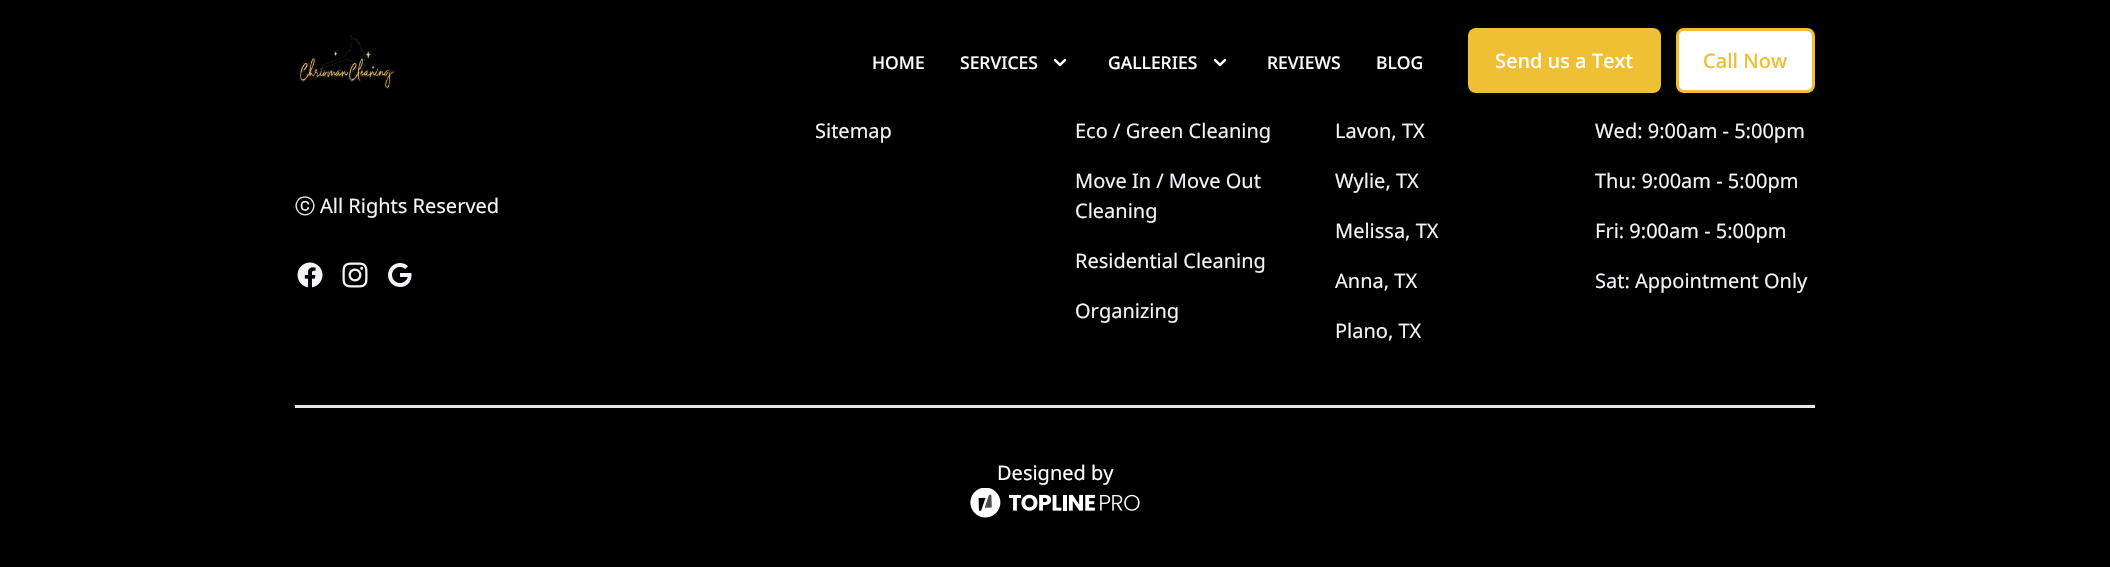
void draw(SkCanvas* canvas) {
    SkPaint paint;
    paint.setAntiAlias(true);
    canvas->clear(0xFF000000);
    canvas->drawImageRect(SkImages::DeferredFromEncodedData(SkData::MakeFromFileName("img1.png")), SkRect::MakeXYWH(299, 34, 96, 55), SkSamplingOptions());
    SkFont font1(fontMgr->matchFamilyStyle("Noto Sans", SkFontStyle(500, SkFontStyle::kNormal_Width, SkFontStyle::kUpright_Slant)), 17.5f);
    font1.setSubpixel(true);
    paint.setColor(0xFFFFFFFF);
    canvas->drawString("HOME", 872, 69, font1, paint);
    canvas->drawString("SERVICES", 960, 69, font1, paint);
    canvas->drawImageRect(SkImages::DeferredFromEncodedData(SkData::MakeFromFileName("img2.png")), SkRect::MakeXYWH(1053, 58, 14, 9), SkSamplingOptions());
    canvas->drawString("GALLERIES", 1108, 69, font1, paint);
    canvas->drawImageRect(SkImages::DeferredFromEncodedData(SkData::MakeFromFileName("img2.png")), SkRect::MakeXYWH(1213, 58, 14, 9), SkSamplingOptions());
    canvas->drawString("REVIEWS", 1267, 69, font1, paint);
    canvas->drawString("BLOG", 1376, 69, font1, paint);
    paint.setColor(0xFFEFC034);
    canvas->drawRoundRect(SkRect::MakeXYWH(1468, 28, 193, 65), 8, 8, paint);
    SkFont font2(fontMgr->matchFamilyStyle("Noto Sans", SkFontStyle(500, SkFontStyle::kNormal_Width, SkFontStyle::kUpright_Slant)), 20);
    font2.setSubpixel(true);
    paint.setColor(0xFFFFFFFF);
    canvas->drawString("Send us a Text", 1495, 68, font2, paint);
    canvas->drawRoundRect(SkRect::MakeXYWH(1677.5f, 29.5f, 136, 62), 6.5f, 6.5f, paint);
    paint.setStyle(SkPaint::kStroke_Style);
    paint.setStrokeWidth(3);
    paint.setColor(0xFFEFC034);
    canvas->drawRoundRect(SkRect::MakeXYWH(1677.5f, 29.5f, 136, 62), 6.5f, 6.5f, paint);
    paint.setStyle(SkPaint::kFill_Style);
    canvas->drawString("Call Now", 1703, 68, font2, paint);
    SkFont font3(fontMgr->matchFamilyStyle("WenQuanYi Zen Hei", SkFontStyle(500, SkFontStyle::kNormal_Width, SkFontStyle::kUpright_Slant)), 20);
    font3.setSubpixel(true);
    paint.setColor(0xFFF3F4F6);
    canvas->drawString("ⓒ", 295, 213, font3, paint);
    SkFont font4(fontMgr->matchFamilyStyle("Noto Sans", SkFontStyle::Normal()), 20);
    font4.setSubpixel(true);
    canvas->drawString("All Rights Reserved", 320, 213, font4, paint);
    canvas->drawImageRect(SkImages::DeferredFromEncodedData(SkData::MakeFromFileName("img3.png")), SkRect::MakeXYWH(297, 262, 26, 26), SkSamplingOptions());
    canvas->drawImageRect(SkImages::DeferredFromEncodedData(SkData::MakeFromFileName("img4.png")), SkRect::MakeXYWH(342, 262, 26, 26), SkSamplingOptions());
    canvas->drawImageRect(SkImages::DeferredFromEncodedData(SkData::MakeFromFileName("img5.png")), SkRect::MakeXYWH(388, 263, 24, 24), SkSamplingOptions());
    canvas->drawString("Sitemap", 815, 138, font4, paint);
    canvas->drawString("Eco / Green Cleaning", 1075, 138, font4, paint);
    canvas->drawString("Move In / Move Out", 1075, 188, font4, paint);
    canvas->drawString("Cleaning", 1075, 218, font4, paint);
    canvas->drawString("Residential Cleaning", 1075, 268, font4, paint);
    canvas->drawString("Organizing", 1075, 318, font4, paint);
    canvas->drawString("Lavon, TX", 1335, 138, font4, paint);
    canvas->drawString("Wylie, TX", 1335, 188, font4, paint);
    canvas->drawString("Melissa, TX", 1335, 238, font4, paint);
    canvas->drawString("Anna, TX", 1335, 288, font4, paint);
    canvas->drawString("Plano, TX", 1335, 338, font4, paint);
    canvas->drawString("Wed: 9:00am - 5:00pm", 1595, 138, font4, paint);
    canvas->drawString("Thu: 9:00am - 5:00pm", 1595, 188, font4, paint);
    canvas->drawString("Fri: 9:00am - 5:00pm", 1595, 238, font4, paint);
    canvas->drawString("Sat: Appointment Only", 1595, 288, font4, paint);
    paint.setColor(0xFFE5E7EB);
    canvas->drawRect(SkRect::MakeXYWH(295, 405, 1520, 3), paint);
    paint.setColor(0xFFFFFFFF);
    canvas->drawString("Designed by", 997, 480, font4, paint);
    canvas->drawImageRect(SkImages::DeferredFromEncodedData(SkData::MakeFromFileName("img6.png")), SkRect::MakeXYWH(970, 488, 170, 30), SkSamplingOptions());
}
